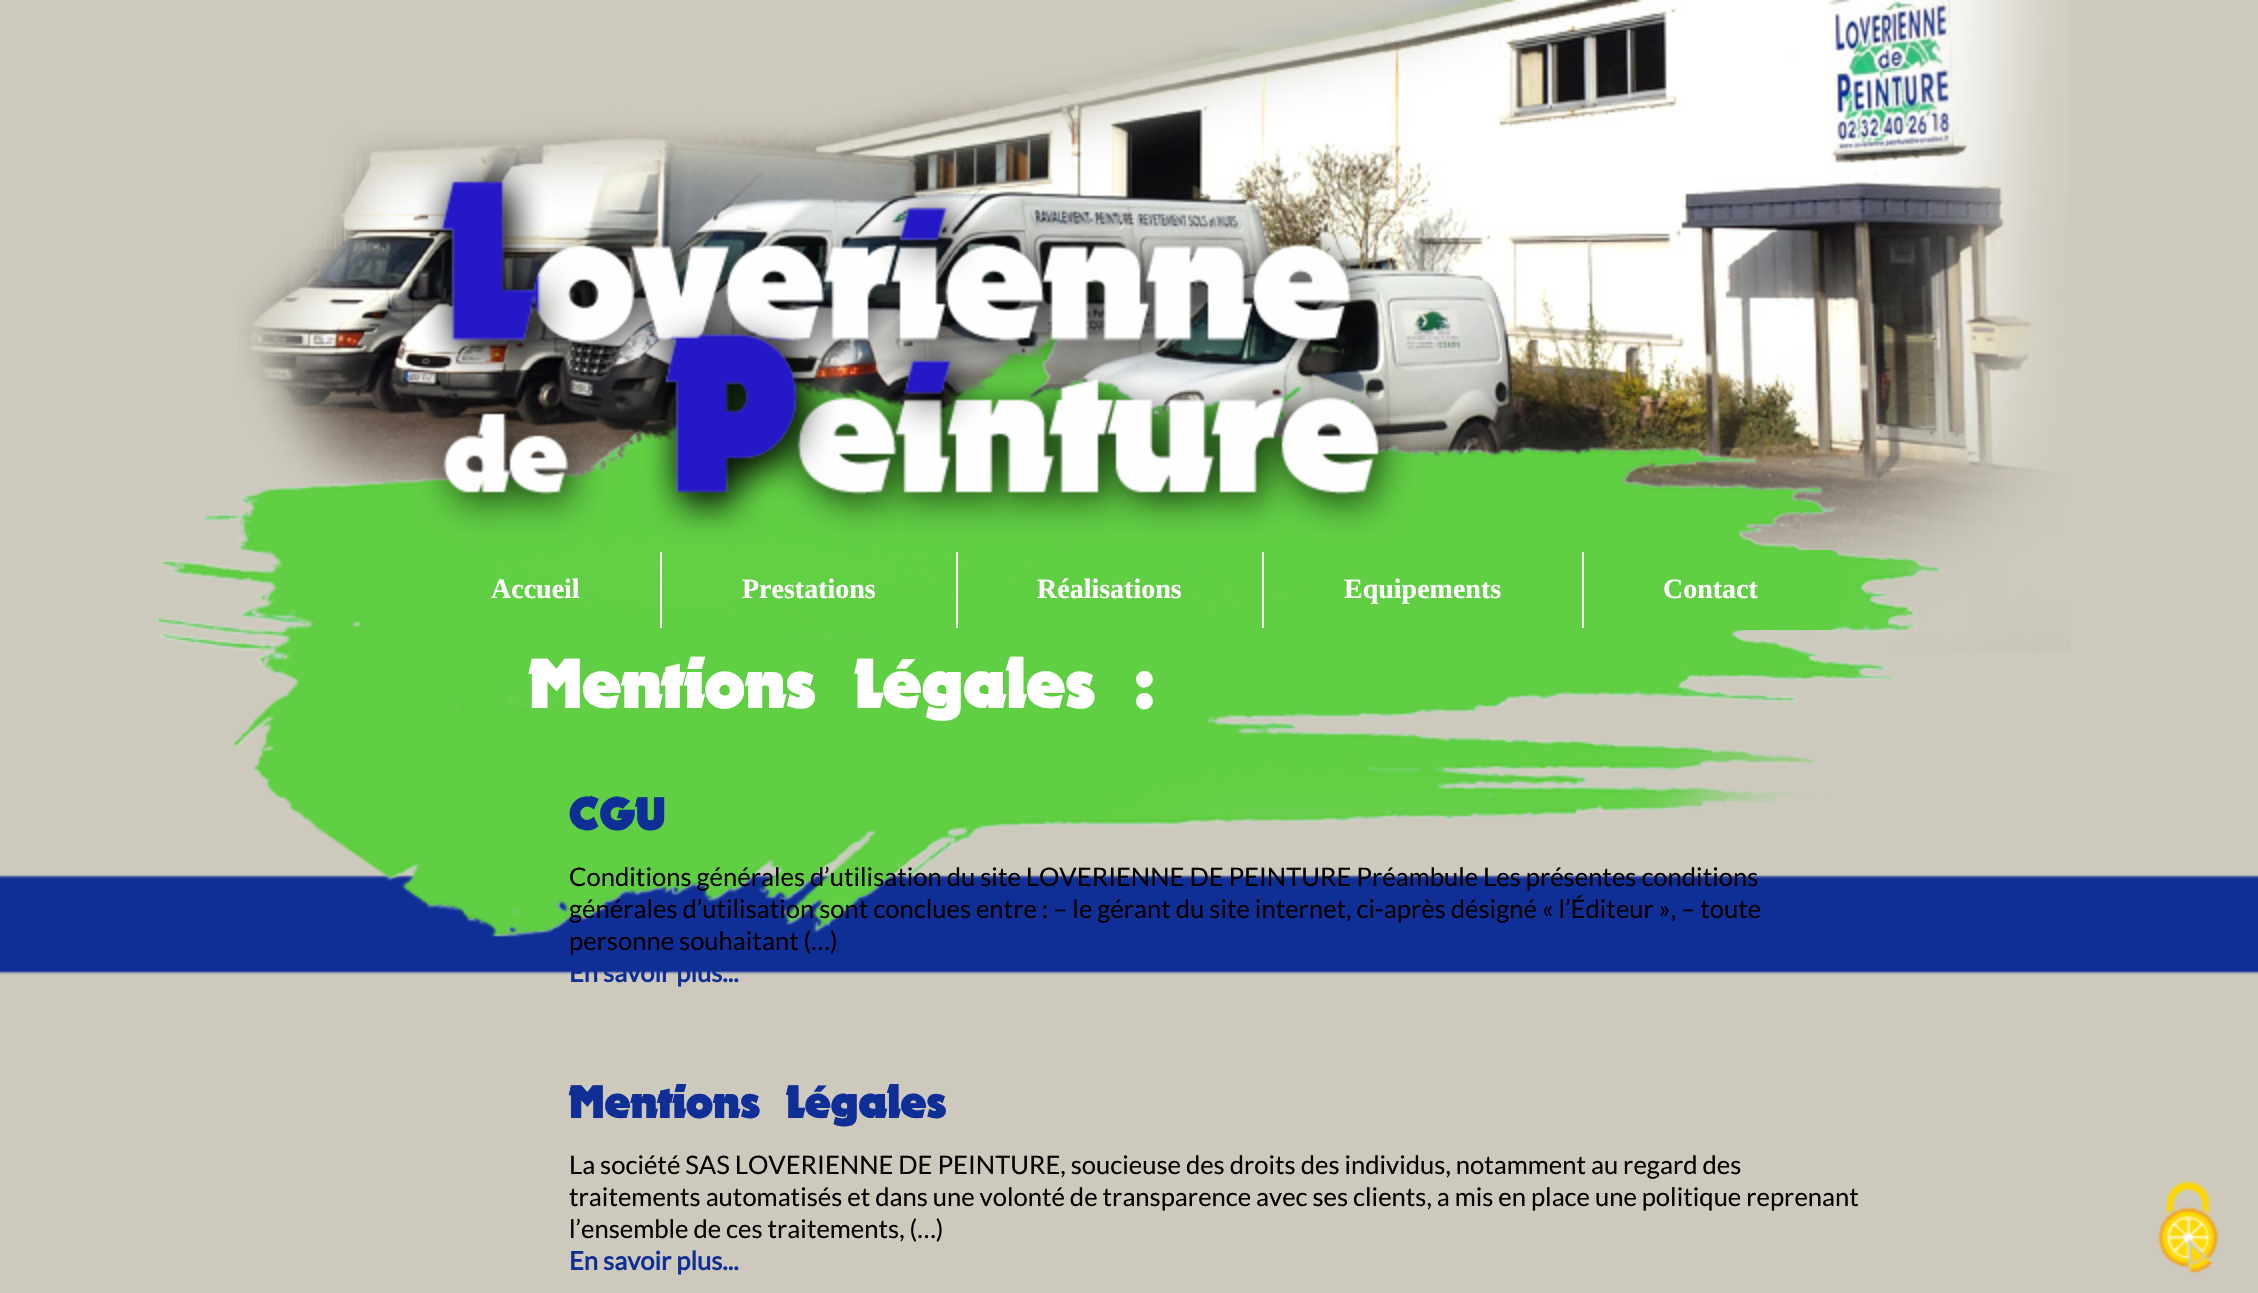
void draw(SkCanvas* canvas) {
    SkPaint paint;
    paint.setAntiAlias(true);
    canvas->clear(0xFFCDCABD);
    canvas->drawImageRect(SkImages::DeferredFromEncodedData(SkData::MakeFromFileName("img1.png")), SkRect::MakeXYWH(237, 0, 1834, 652), SkSamplingOptions());
    canvas->drawImageRect(SkImages::DeferredFromEncodedData(SkData::MakeFromFileName("img2.png")), SkRect::MakeXYWH(0, 875, 2258, 100), SkSamplingOptions());
    canvas->drawImageRect(SkImages::DeferredFromEncodedData(SkData::MakeFromFileName("img3.png")), SkRect::MakeXYWH(156, 156, 1786, 781), SkSamplingOptions());
    paint.setStyle(SkPaint::kStroke_Style);
    paint.setStrokeWidth(2);
    paint.setColor(0xFF61CF44);
    canvas->drawRoundRect(SkRect::MakeXYWH(411, 551, 1428, 78), 9, 9, paint);
    SkFont font1(fontMgr->matchFamilyStyle("Liberation Serif", SkFontStyle::Bold()), 28);
    font1.setSubpixel(true);
    paint.setStyle(SkPaint::kFill_Style);
    paint.setColor(0xFFFFFFFF);
    canvas->drawString("Accueil", 491, 598, font1, paint);
    canvas->drawRect(SkRect::MakeXYWH(660, 552, 2, 76), paint);
    canvas->drawString("Prestations", 742, 598, font1, paint);
    paint.setColor(0xFF61CF44);
    canvas->drawRect(SkRect::MakeXYWH(1188, 564, 7, 4), paint);
    paint.setColor(0xFFFFFFFF);
    canvas->drawRect(SkRect::MakeXYWH(956, 552, 2, 76), paint);
    canvas->drawString("Réalisations", 1037, 598, font1, paint);
    canvas->drawRect(SkRect::MakeXYWH(1262, 552, 2, 76), paint);
    canvas->drawString("Equipements", 1344, 598, font1, paint);
    paint.setColor(0xFF61CF44);
    canvas->drawPath(SkPathBuilder().moveTo(1584, 552).lineTo(1830, 552).cubicTo(1834.5f, 552, 1838, 555.5f, 1838, 560).lineTo(1838, 620).cubicTo(1838, 624.5f, 1834.5f, 628, 1830, 628).lineTo(1584, 628).close().detach(), paint);
    paint.setColor(0xFFFFFFFF);
    canvas->drawRect(SkRect::MakeXYWH(1582, 552, 2, 76), paint);
    canvas->drawString("Contact", 1663, 598, font1, paint);
    SkFont font2(fontMgr->matchFamilyStyle("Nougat", SkFontStyle(800, SkFontStyle::kNormal_Width, SkFontStyle::kUpright_Slant)), 72);
    font2.setSubpixel(true);
    canvas->drawString("Mentions Légales :", 529, 708, font2, paint);
    SkFont font3(fontMgr->matchFamilyStyle("Nougat", SkFontStyle(800, SkFontStyle::kNormal_Width, SkFontStyle::kUpright_Slant)), 48);
    font3.setSubpixel(true);
    paint.setColor(0xFF102F96);
    canvas->drawString("CGU", 569, 830, font3, paint);
    SkFont font4(fontMgr->matchFamilyStyle("Lato", SkFontStyle::Normal()), 25.6f);
    font4.setSubpixel(true);
    paint.setColor(0xFF000000);
    canvas->drawString("Conditions générales d’utilisation du site LOVERIENNE DE PEINTURE Préambule Les présentes conditions", 569, 886, font4, paint);
    canvas->drawString("générales d’utilisation sont conclues entre : – le gérant du site internet, ci-après désigné « l’Éditeur », – toute", 569, 918, font4, paint);
    canvas->drawString("personne souhaitant (…)", 569, 950, font4, paint);
    SkFont font5(fontMgr->matchFamilyStyle("Lato", SkFontStyle::Bold()), 25.6f);
    font5.setSubpixel(true);
    paint.setColor(0xFF102F96);
    canvas->drawString("En savoir plus...", 569, 982, font5, paint);
    canvas->drawString("Mentions Légales", 569, 1118, font3, paint);
    paint.setColor(0xFF000000);
    canvas->drawString("La société SAS LOVERIENNE DE PEINTURE, soucieuse des droits des individus, notamment au regard des", 569, 1174, font4, paint);
    canvas->drawString("traitements automatisés et dans une volonté de transparence avec ses clients, a mis en place une politique reprenant", 569, 1206, font4, paint);
    canvas->drawString("l’ensemble de ces traitements, (…)", 569, 1238, font4, paint);
    paint.setColor(0xFF102F96);
    canvas->drawString("En savoir plus...", 569, 1270, font5, paint);
    canvas->drawImageRect(SkImages::DeferredFromEncodedData(SkData::MakeFromFileName("img4.png")), SkRect::MakeXYWH(2157, 1181, 62, 94), SkSamplingOptions());
}
